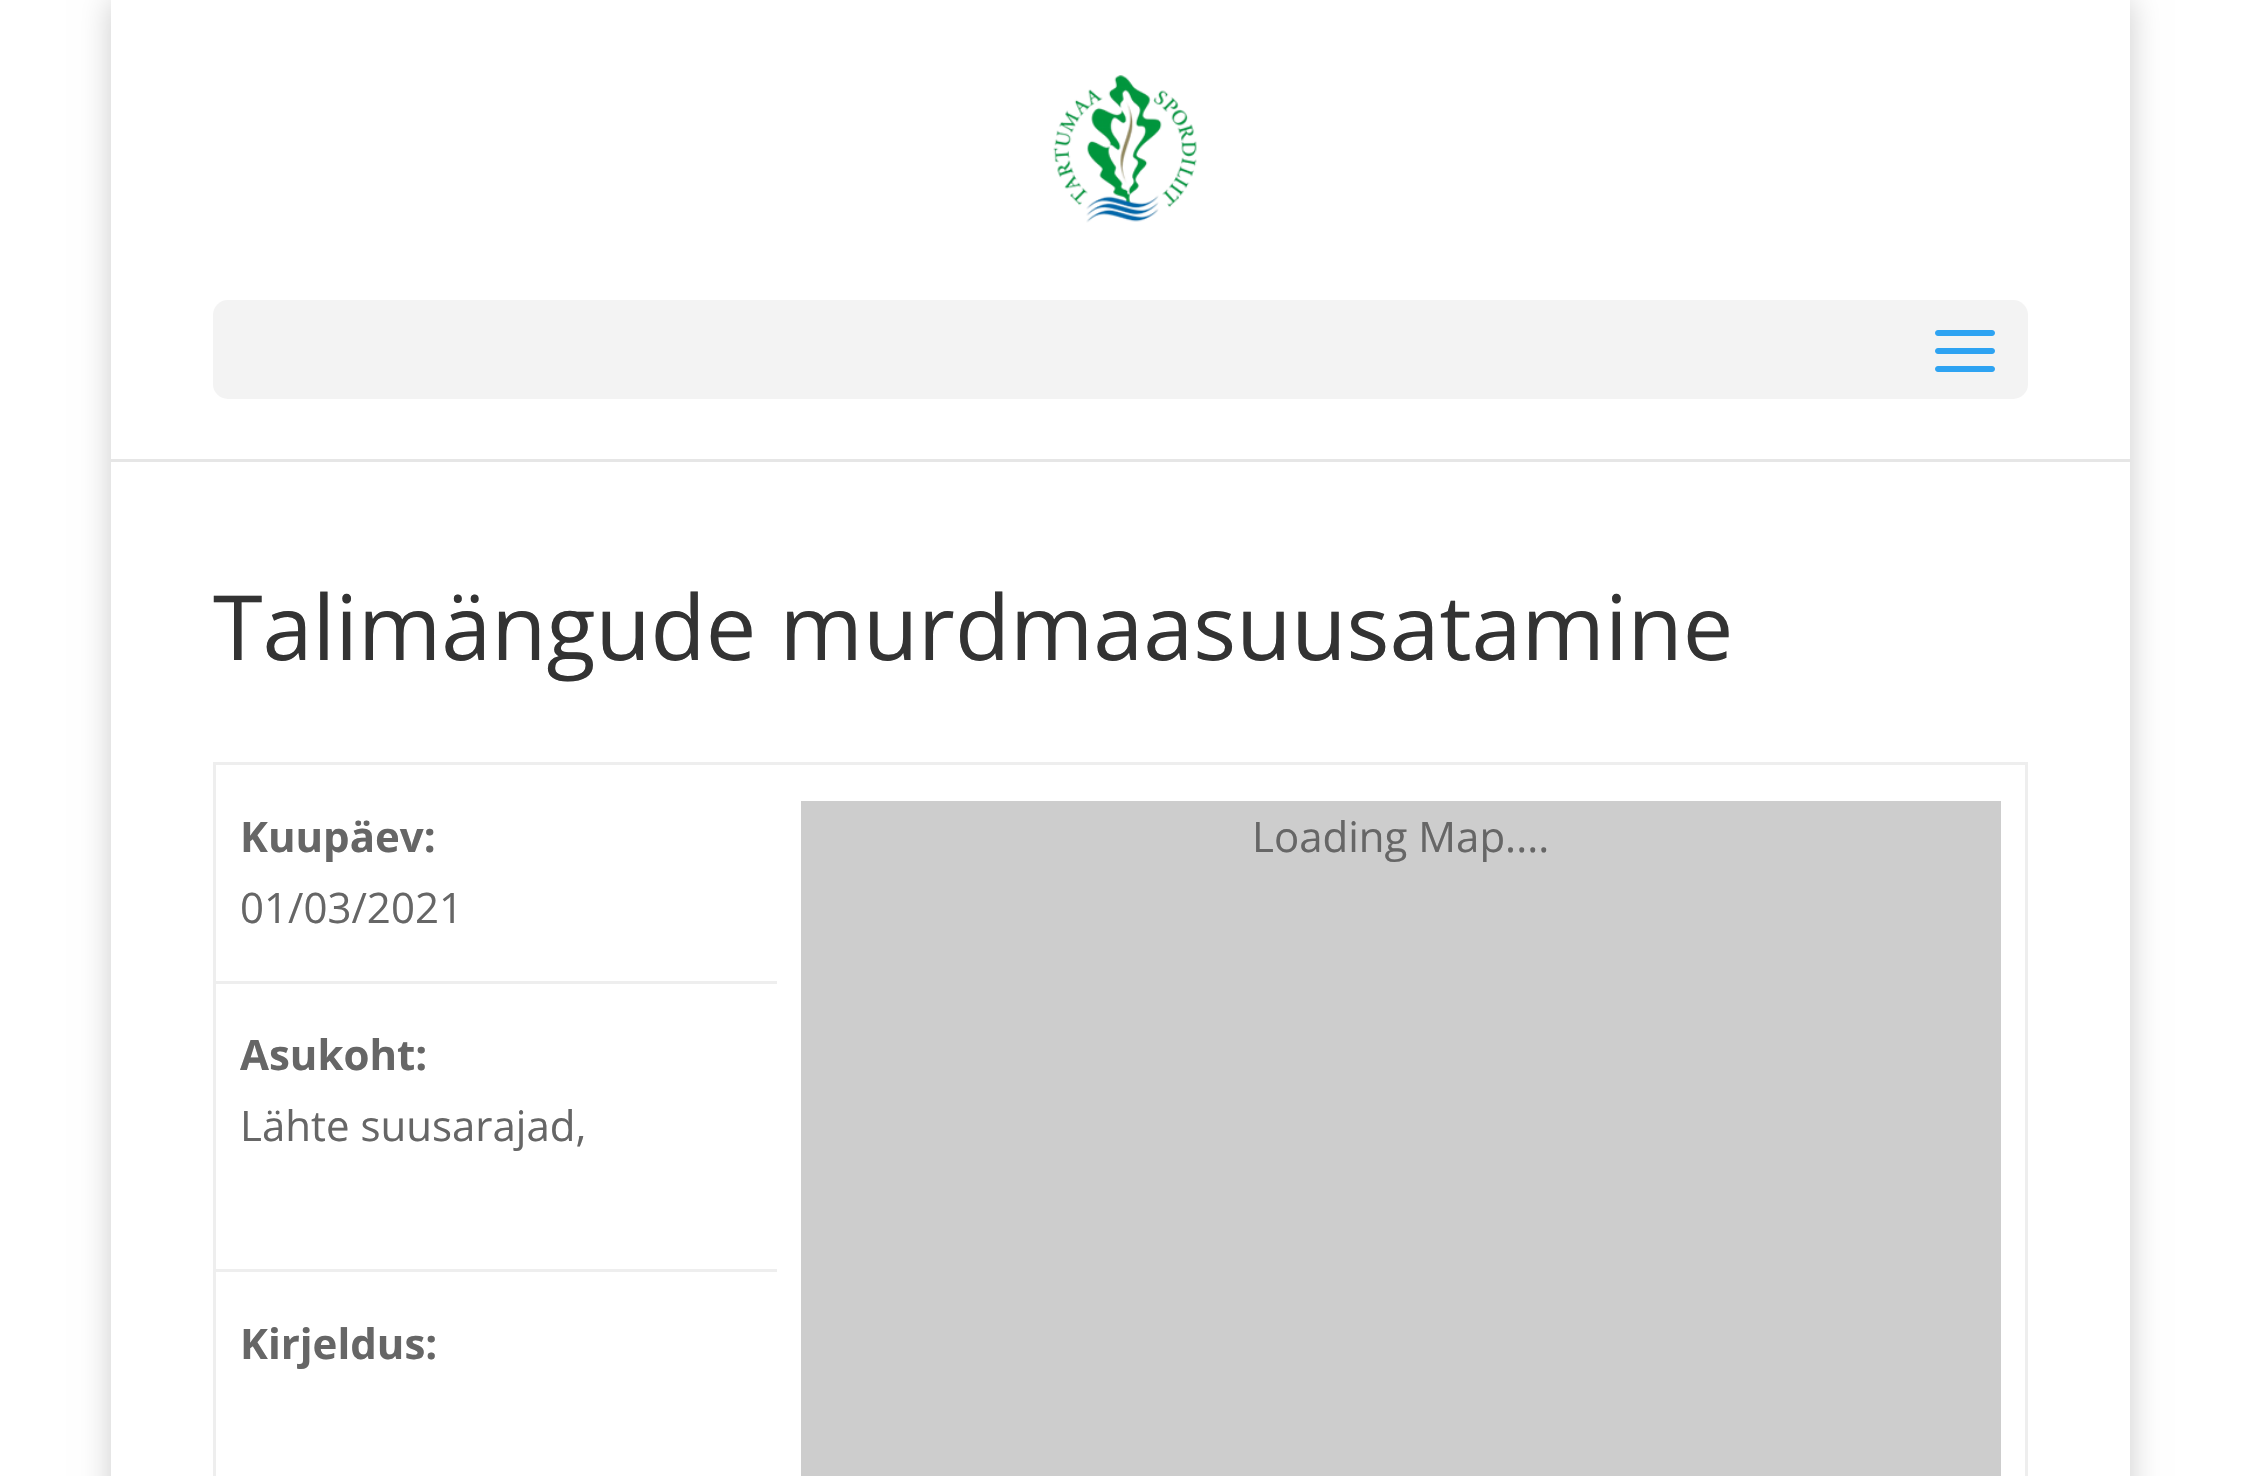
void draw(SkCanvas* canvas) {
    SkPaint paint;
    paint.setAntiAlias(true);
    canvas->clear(0xFFFFFFFF);
    canvas->save();
    canvas->clipPath(SkPathBuilder(SkPathFillType::kEvenOdd).moveTo(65, 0).lineTo(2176, 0).lineTo(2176, 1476).lineTo(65, 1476).close().moveTo(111, 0).lineTo(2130, 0).lineTo(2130, 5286).lineTo(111, 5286).close().detach(), true);
    paint.setColor(0x33000000);
    paint.setMaskFilter(SkMaskFilter::MakeBlur(kNormal_SkBlurStyle, 15));
    canvas->drawRect(SkRect::MakeXYWH(111, 0, 2019, 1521), paint);
    paint.setMaskFilter(nullptr);
    canvas->restore();
    paint.setColor(0xFFE6E6E6);
    canvas->drawRect(SkRect::MakeXYWH(111, 459, 2019, 3), paint);
    canvas->drawImageRect(SkImages::DeferredFromEncodedData(SkData::MakeFromFileName("img1.png")), SkRect::MakeXYWH(1053, 75, 144, 148), SkSamplingOptions());
    paint.setColor(0xFFF3F3F3);
    canvas->drawRoundRect(SkRect::MakeXYWH(213, 300, 1815, 99), 15, 15, paint);
    canvas->drawImageRect(SkImages::DeferredFromEncodedData(SkData::MakeFromFileName("img2.png")), SkRect::MakeXYWH(1935, 330, 60, 42), SkSamplingOptions());
    SkFont font1(fontMgr->matchFamilyStyle("Open Sans", SkFontStyle::Normal()), 90);
    font1.setSubpixel(true);
    paint.setColor(0xFF333333);
    canvas->drawString("Talimängude murdmaasuusatamine", 213, 660, font1, paint);
    paint.setColor(0xFFEEEEEE);
    canvas->drawRect(SkRect::MakeXYWH(213, 762, 1815, 3), paint);
    canvas->drawRect(SkRect::MakeXYWH(2025, 762, 3, 714), paint);
    canvas->drawRect(SkRect::MakeXYWH(213, 762, 3, 714), paint);
    SkFont font2(fontMgr->matchFamilyStyle("Open Sans", SkFontStyle::Bold()), 42);
    font2.setSubpixel(true);
    paint.setColor(0xFF666666);
    canvas->drawString("Kuupäev:", 240, 852, font2, paint);
    SkFont font3(fontMgr->matchFamilyStyle("Open Sans", SkFontStyle::Normal()), 42);
    font3.setSubpixel(true);
    canvas->drawString("01/03/2021", 240, 923, font3, paint);
    paint.setColor(0xFFCDCDCD);
    canvas->drawRect(SkRect::MakeXYWH(801, 801, 1200, 675), paint);
    paint.setColor(0xFF666666);
    canvas->drawString("Loading Map....", 1252, 852, font3, paint);
    paint.setColor(0xFFEEEEEE);
    canvas->drawRect(SkRect::MakeXYWH(213, 981, 564, 3), paint);
    paint.setColor(0xFF666666);
    canvas->drawString("Asukoht:", 240, 1070, font2, paint);
    canvas->drawString("Lähte suusarajad,", 240, 1141, font3, paint);
    paint.setColor(0xFFEEEEEE);
    canvas->drawRect(SkRect::MakeXYWH(213, 1269, 564, 3), paint);
    paint.setColor(0xFF666666);
    canvas->drawString("Kirjeldus:", 240, 1359, font2, paint);
}
